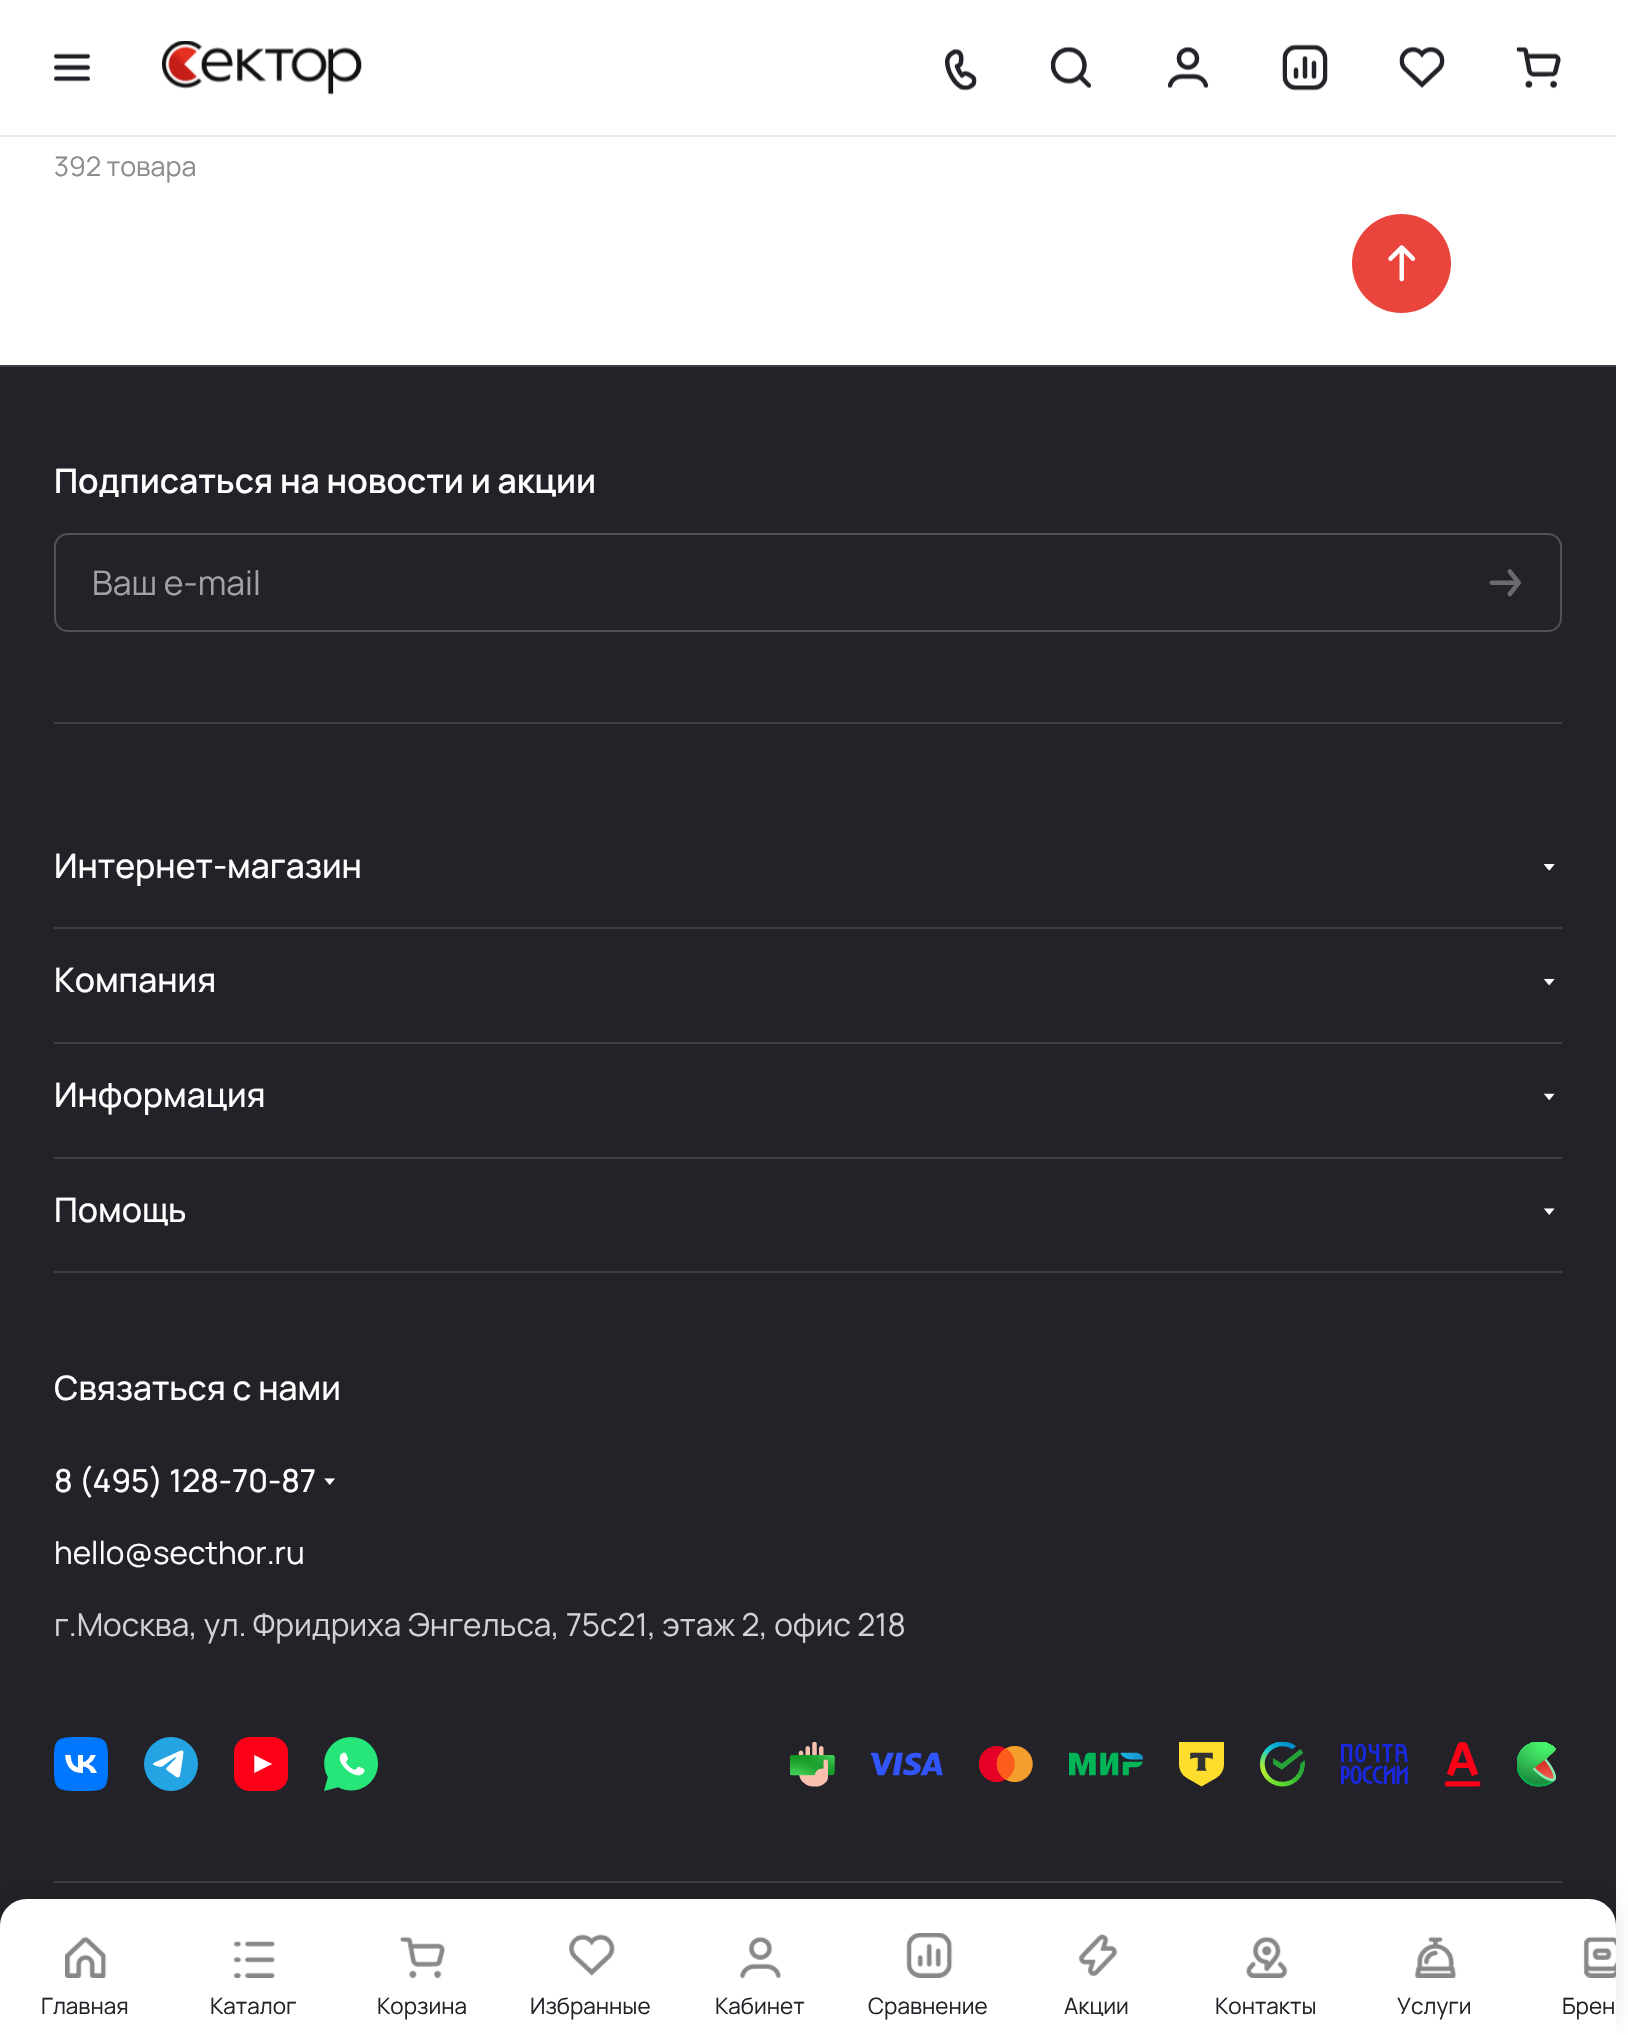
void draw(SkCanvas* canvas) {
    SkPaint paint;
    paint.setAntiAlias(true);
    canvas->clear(0xFFFFFFFF);
    paint.setColor(0xFFEBECEF);
    canvas->drawRect(SkRect::MakeXYWH(0, 135, 1616, 2), paint);
    canvas->drawImageRect(SkImages::DeferredFromEncodedData(SkData::MakeFromFileName("img1.png")), SkRect::MakeXYWH(54, 53, 36, 29), SkSamplingOptions());
    canvas->drawImageRect(SkImages::DeferredFromEncodedData(SkData::MakeFromFileName("img2.png")), SkRect::MakeXYWH(162, 41, 200, 54), SkSamplingOptions());
    canvas->drawImageRect(SkImages::DeferredFromEncodedData(SkData::MakeFromFileName("img3.png")), SkRect::MakeXYWH(945, 49, 32, 42), SkSamplingOptions());
    canvas->drawImageRect(SkImages::DeferredFromEncodedData(SkData::MakeFromFileName("img4.png")), SkRect::MakeXYWH(1050, 46, 42, 42), SkSamplingOptions());
    canvas->drawImageRect(SkImages::DeferredFromEncodedData(SkData::MakeFromFileName("img5.png")), SkRect::MakeXYWH(1167, 46, 42, 43), SkSamplingOptions());
    canvas->drawImageRect(SkImages::DeferredFromEncodedData(SkData::MakeFromFileName("img6.png")), SkRect::MakeXYWH(1282, 44, 46, 47), SkSamplingOptions());
    canvas->drawImageRect(SkImages::DeferredFromEncodedData(SkData::MakeFromFileName("img7.png")), SkRect::MakeXYWH(1399, 46, 46, 42), SkSamplingOptions());
    canvas->drawImageRect(SkImages::DeferredFromEncodedData(SkData::MakeFromFileName("img8.png")), SkRect::MakeXYWH(1516, 46, 45, 43), SkSamplingOptions());
    SkFont font1(fontMgr->matchFamilyStyle("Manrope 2", SkFontStyle(200, SkFontStyle::kNormal_Width, SkFontStyle::kUpright_Slant)), 27);
    font1.setSubpixel(true);
    paint.setColor(0xFF8D8D8D);
    canvas->drawString("392 товара", 54, 176, font1, paint);
    paint.setColor(0xFF222228);
    canvas->drawRect(SkRect::MakeXYWH(0, 367, 1616, 1559), paint);
    paint.setColor(0xFF3F3F45);
    canvas->drawRect(SkRect::MakeXYWH(0, 365, 1616, 2), paint);
    canvas->drawRect(SkRect::MakeXYWH(54, 722, 1508, 2), paint);
    SkFont font2(fontMgr->matchFamilyStyle("Manrope", SkFontStyle(200, SkFontStyle::kNormal_Width, SkFontStyle::kUpright_Slant)), 33.75f);
    font2.setSubpixel(true);
    paint.setColor(0xFFFFFFFF);
    canvas->drawString("Подписаться на новости и акции", 54, 493, font2, paint);
    paint.setStyle(SkPaint::kStroke_Style);
    paint.setStrokeWidth(2);
    paint.setColor(0xFF505056);
    canvas->drawRoundRect(SkRect::MakeXYWH(55, 534, 1506, 97), 13, 13, paint);
    SkFont font3(fontMgr->matchFamilyStyle("Manrope 2", SkFontStyle(200, SkFontStyle::kNormal_Width, SkFontStyle::kUpright_Slant)), 33.75f);
    font3.setSubpixel(true);
    paint.setStyle(SkPaint::kFill_Style);
    paint.setColor(0xFFA1A1A7);
    canvas->drawString("Ваш e-mail", 92, 595, font3, paint);
    canvas->drawImageRect(SkImages::DeferredFromEncodedData(SkData::MakeFromFileName("img9.png")), SkRect::MakeXYWH(1489, 569, 32, 28), SkSamplingOptions());
    paint.setColor(0xFF3F3F45);
    canvas->drawRect(SkRect::MakeXYWH(54, 927, 1508, 2), paint);
    SkFont font4(fontMgr->matchFamilyStyle("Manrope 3", SkFontStyle(200, SkFontStyle::kNormal_Width, SkFontStyle::kUpright_Slant)), 33.75f);
    font4.setSubpixel(true);
    paint.setColor(0xFFFFFFFF);
    canvas->drawString("Интернет-магазин", 54, 878, font4, paint);
    canvas->drawImageRect(SkImages::DeferredFromEncodedData(SkData::MakeFromFileName("img10.png")), SkRect::MakeXYWH(1543, 864, 12, 7), SkSamplingOptions());
    paint.setColor(0xFF3F3F45);
    canvas->drawRect(SkRect::MakeXYWH(54, 1042, 1508, 2), paint);
    paint.setColor(0xFFFFFFFF);
    canvas->drawString("Компания", 54, 992, font4, paint);
    canvas->drawImageRect(SkImages::DeferredFromEncodedData(SkData::MakeFromFileName("img11.png")), SkRect::MakeXYWH(1544, 978, 11, 8), SkSamplingOptions());
    paint.setColor(0xFF3F3F45);
    canvas->drawRect(SkRect::MakeXYWH(54, 1157, 1508, 2), paint);
    paint.setColor(0xFFFFFFFF);
    canvas->drawString("Информация", 54, 1107, font4, paint);
    canvas->drawImageRect(SkImages::DeferredFromEncodedData(SkData::MakeFromFileName("img12.png")), SkRect::MakeXYWH(1543, 1093, 12, 7), SkSamplingOptions());
    paint.setColor(0xFF3F3F45);
    canvas->drawRect(SkRect::MakeXYWH(54, 1271, 1508, 2), paint);
    paint.setColor(0xFFFFFFFF);
    canvas->drawString("Помощь", 54, 1222, font4, paint);
    canvas->drawImageRect(SkImages::DeferredFromEncodedData(SkData::MakeFromFileName("img13.png")), SkRect::MakeXYWH(1543, 1208, 12, 7), SkSamplingOptions());
    canvas->drawString("Связаться с нами", 54, 1400, font4, paint);
    SkFont font5(fontMgr->matchFamilyStyle("Manrope 3", SkFontStyle(200, SkFontStyle::kNormal_Width, SkFontStyle::kUpright_Slant)), 31.5f);
    font5.setSubpixel(true);
    canvas->drawString("8 (495) 128-70-87", 54, 1492, font5, paint);
    canvas->drawImageRect(SkImages::DeferredFromEncodedData(SkData::MakeFromFileName("img14.png")), SkRect::MakeXYWH(324, 1478, 11, 7), SkSamplingOptions());
    SkFont font6(fontMgr->matchFamilyStyle("Manrope 2", SkFontStyle(200, SkFontStyle::kNormal_Width, SkFontStyle::kUpright_Slant)), 31.5f);
    font6.setSubpixel(true);
    canvas->drawString("hello@secthor.ru", 54, 1564, font6, paint);
    paint.setColor(0xFFD1D1D7);
    canvas->drawString("г.Москва, ул. Фридриха Энгельса, 75с21, этаж 2, офис 218", 54, 1636, font6, paint);
    canvas->drawImageRect(SkImages::DeferredFromEncodedData(SkData::MakeFromFileName("img15.png")), SkRect::MakeXYWH(54, 1737, 54, 54), SkSamplingOptions());
    canvas->drawImageRect(SkImages::DeferredFromEncodedData(SkData::MakeFromFileName("img16.png")), SkRect::MakeXYWH(144, 1737, 54, 54), SkSamplingOptions());
    canvas->drawImageRect(SkImages::DeferredFromEncodedData(SkData::MakeFromFileName("img17.png")), SkRect::MakeXYWH(234, 1737, 54, 54), SkSamplingOptions());
    canvas->drawImageRect(SkImages::DeferredFromEncodedData(SkData::MakeFromFileName("img18.png")), SkRect::MakeXYWH(324, 1737, 54, 54), SkSamplingOptions());
    canvas->drawImageRect(SkImages::DeferredFromEncodedData(SkData::MakeFromFileName("img19.png")), SkRect::MakeXYWH(790, 1742, 45, 45), SkSamplingOptions());
    canvas->drawImageRect(SkImages::DeferredFromEncodedData(SkData::MakeFromFileName("img20.png")), SkRect::MakeXYWH(871, 1752, 72, 24), SkSamplingOptions());
    canvas->drawImageRect(SkImages::DeferredFromEncodedData(SkData::MakeFromFileName("img21.png")), SkRect::MakeXYWH(979, 1746, 54, 36), SkSamplingOptions());
    canvas->drawImageRect(SkImages::DeferredFromEncodedData(SkData::MakeFromFileName("img22.png")), SkRect::MakeXYWH(1069, 1752, 74, 24), SkSamplingOptions());
    canvas->drawImageRect(SkImages::DeferredFromEncodedData(SkData::MakeFromFileName("img23.png")), SkRect::MakeXYWH(1179, 1742, 45, 45), SkSamplingOptions());
    canvas->drawImageRect(SkImages::DeferredFromEncodedData(SkData::MakeFromFileName("img24.png")), SkRect::MakeXYWH(1260, 1742, 45, 45), SkSamplingOptions());
    canvas->drawImageRect(SkImages::DeferredFromEncodedData(SkData::MakeFromFileName("img25.png")), SkRect::MakeXYWH(1341, 1743, 67, 42), SkSamplingOptions());
    canvas->drawImageRect(SkImages::DeferredFromEncodedData(SkData::MakeFromFileName("img26.png")), SkRect::MakeXYWH(1445, 1742, 36, 45), SkSamplingOptions());
    canvas->drawImageRect(SkImages::DeferredFromEncodedData(SkData::MakeFromFileName("img27.png")), SkRect::MakeXYWH(1517, 1742, 39, 45), SkSamplingOptions());
    paint.setColor(0xFF3F3F45);
    canvas->drawRect(SkRect::MakeXYWH(54, 1881, 1508, 2), paint);
    paint.setColor(0x1A000000);
    paint.setMaskFilter(SkMaskFilter::MakeBlur(kNormal_SkBlurStyle, 11));
    canvas->drawRoundRect(SkRect::MakeXYWH(0, 1892, 1616, 138), 27, 27, paint);
    paint.setMaskFilter(nullptr);
    paint.setColor(0xFFFFFFFF);
    canvas->drawPath(SkPathBuilder().moveTo(27, 1899).lineTo(1589, 1899).cubicTo(1604, 1899, 1616, 1911, 1616, 1926).lineTo(1616, 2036).lineTo(0, 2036).lineTo(0, 1926).cubicTo(0, 1911, 12, 1899, 27, 1899).close().detach(), paint);
    canvas->drawImageRect(SkImages::DeferredFromEncodedData(SkData::MakeFromFileName("img28.png")), SkRect::MakeXYWH(65, 1936, 42, 42), SkSamplingOptions());
    SkFont font7(fontMgr->matchFamilyStyle("Manrope 2", SkFontStyle(200, SkFontStyle::kNormal_Width, SkFontStyle::kUpright_Slant)), 22.5f);
    font7.setSubpixel(true);
    paint.setColor(0xFF222228);
    canvas->drawString("Главная", 41, 2014, font7, paint);
    canvas->drawImageRect(SkImages::DeferredFromEncodedData(SkData::MakeFromFileName("img29.png")), SkRect::MakeXYWH(234, 1941, 41, 37), SkSamplingOptions());
    canvas->drawString("Каталог", 210, 2014, font7, paint);
    canvas->drawImageRect(SkImages::DeferredFromEncodedData(SkData::MakeFromFileName("img30.png")), SkRect::MakeXYWH(400, 1936, 46, 42), SkSamplingOptions());
    canvas->drawString("Корзина", 377, 2014, font7, paint);
    canvas->drawImageRect(SkImages::DeferredFromEncodedData(SkData::MakeFromFileName("img31.png")), SkRect::MakeXYWH(569, 1934, 46, 42), SkSamplingOptions());
    canvas->drawString("Избранные", 530, 2014, font7, paint);
    canvas->drawImageRect(SkImages::DeferredFromEncodedData(SkData::MakeFromFileName("img32.png")), SkRect::MakeXYWH(740, 1936, 42, 42), SkSamplingOptions());
    canvas->drawString("Кабинет", 715, 2014, font7, paint);
    canvas->drawImageRect(SkImages::DeferredFromEncodedData(SkData::MakeFromFileName("img33.png")), SkRect::MakeXYWH(906, 1933, 47, 45), SkSamplingOptions());
    canvas->drawString("Сравнение", 868, 2014, font7, paint);
    canvas->drawImageRect(SkImages::DeferredFromEncodedData(SkData::MakeFromFileName("img34.png")), SkRect::MakeXYWH(1079, 1934, 39, 42), SkSamplingOptions());
    canvas->drawString("Акции", 1064, 2014, font7, paint);
    canvas->drawImageRect(SkImages::DeferredFromEncodedData(SkData::MakeFromFileName("img35.png")), SkRect::MakeXYWH(1246, 1936, 42, 42), SkSamplingOptions());
    canvas->drawString("Контакты", 1215, 2014, font7, paint);
    canvas->drawImageRect(SkImages::DeferredFromEncodedData(SkData::MakeFromFileName("img36.png")), SkRect::MakeXYWH(1415, 1936, 42, 42), SkSamplingOptions());
    canvas->drawString("Услуги", 1397, 2014, font7, paint);
    canvas->drawImageRect(SkImages::DeferredFromEncodedData(SkData::MakeFromFileName("img37.png")), SkRect::MakeXYWH(1583, 1936, 33, 42), SkSamplingOptions());
    canvas->drawString("Брен", 1562, 2014, font7, paint);
    paint.setColor(0xFFE9453D);
    canvas->drawCircle(1401.5f, 263.5f, 49.5f, paint);
    canvas->drawImageRect(SkImages::DeferredFromEncodedData(SkData::MakeFromFileName("img38.png")), SkRect::MakeXYWH(1388, 245, 27, 37), SkSamplingOptions());
}
